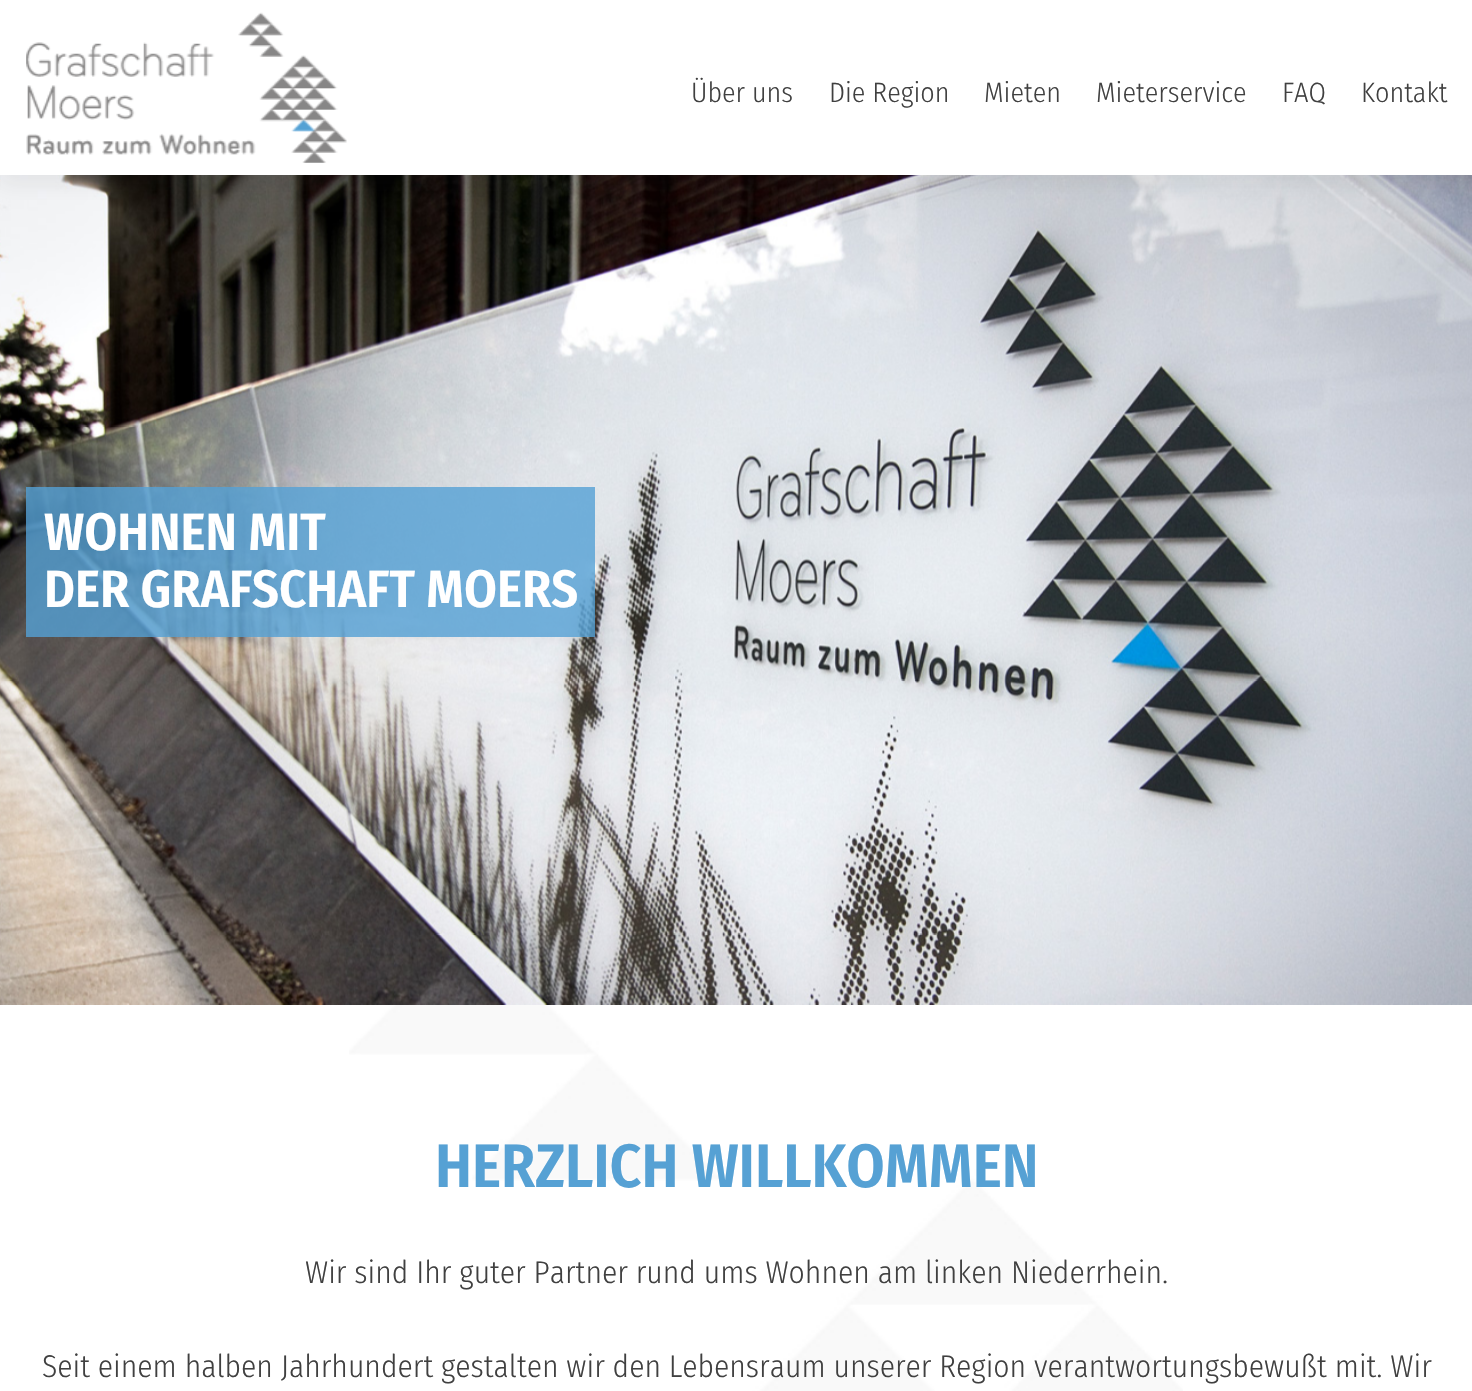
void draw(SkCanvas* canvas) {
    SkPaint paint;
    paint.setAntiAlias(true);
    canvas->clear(0xFFFFFFFF);
    canvas->drawImageRect(SkImages::DeferredFromEncodedData(SkData::MakeFromFileName("img2.png")), SkRect::MakeXYWH(0, 175, 1472, 830), SkSamplingOptions());
    paint.setColor(0x14323232);
    paint.setMaskFilter(SkMaskFilter::MakeBlur(kNormal_SkBlurStyle, 9.5f));
    canvas->drawRect(SkRect::MakeXYWH(0, 9, 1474, 175), paint);
    paint.setMaskFilter(nullptr);
    paint.setColor(0xFFFFFFFF);
    canvas->drawRect(SkRect::MakeXYWH(0, 0, 1472, 175), paint);
    canvas->drawImageRect(SkImages::DeferredFromEncodedData(SkData::MakeFromFileName("img1.png")), SkRect::MakeXYWH(26, 12, 321, 151), SkSamplingOptions());
    SkFont font1(fontMgr->matchFamilyStyle("Fira Sans Condensed", SkFontStyle(300, SkFontStyle::kNormal_Width, SkFontStyle::kUpright_Slant)), 28);
    font1.setSubpixel(true);
    paint.setColor(0xFF404040);
    canvas->drawString("Über uns", 691, 102, font1, paint);
    canvas->drawString("Die Region", 829, 102, font1, paint);
    canvas->drawString("Mieten", 984, 102, font1, paint);
    canvas->drawString("Mieterservice", 1096, 102, font1, paint);
    canvas->drawString("FAQ", 1282, 102, font1, paint);
    canvas->drawString("Kontakt", 1361, 102, font1, paint);
    paint.setColor(0xCC54A0D4);
    canvas->drawRect(SkRect::MakeXYWH(26, 487, 569, 150), paint);
    SkFont font2(fontMgr->matchFamilyStyle("Fira Sans Condensed", SkFontStyle(600, SkFontStyle::kNormal_Width, SkFontStyle::kUpright_Slant)), 52.5f);
    font2.setSubpixel(true);
    paint.setColor(0xFFFFFFFF);
    canvas->drawString("WOHNEN MIT", 44, 550, font2, paint);
    canvas->drawString("DER GRAFSCHAFT MOERS", 44, 607, font2, paint);
    canvas->drawImageRect(SkImages::DeferredFromEncodedData(SkData::MakeFromFileName("img3.png")), SkRect::MakeXYWH(349, 1005, 834, 386), SkSamplingOptions());
    SkFont font3(fontMgr->matchFamilyStyle("Fira Sans Condensed", SkFontStyle(600, SkFontStyle::kNormal_Width, SkFontStyle::kUpright_Slant)), 61.25f);
    font3.setSubpixel(true);
    paint.setColor(0xFF56A1D4);
    canvas->drawString("HERZLICH WILLKOMMEN", 435, 1187, font3, paint);
    SkFont font4(fontMgr->matchFamilyStyle("Fira Sans Condensed", SkFontStyle(300, SkFontStyle::kNormal_Width, SkFontStyle::kUpright_Slant)), 31.5f);
    font4.setSubpixel(true);
    paint.setColor(0xFF404040);
    canvas->drawString("Wir sind Ihr guter Partner rund ums Wohnen am linken Niederrhein.", 305, 1283, font4, paint);
    canvas->drawString("Seit einem halben Jahrhundert gestalten wir den Lebensraum unserer Region verantwortungsbewußt mit. Wir", 42, 1377, font4, paint);
}
